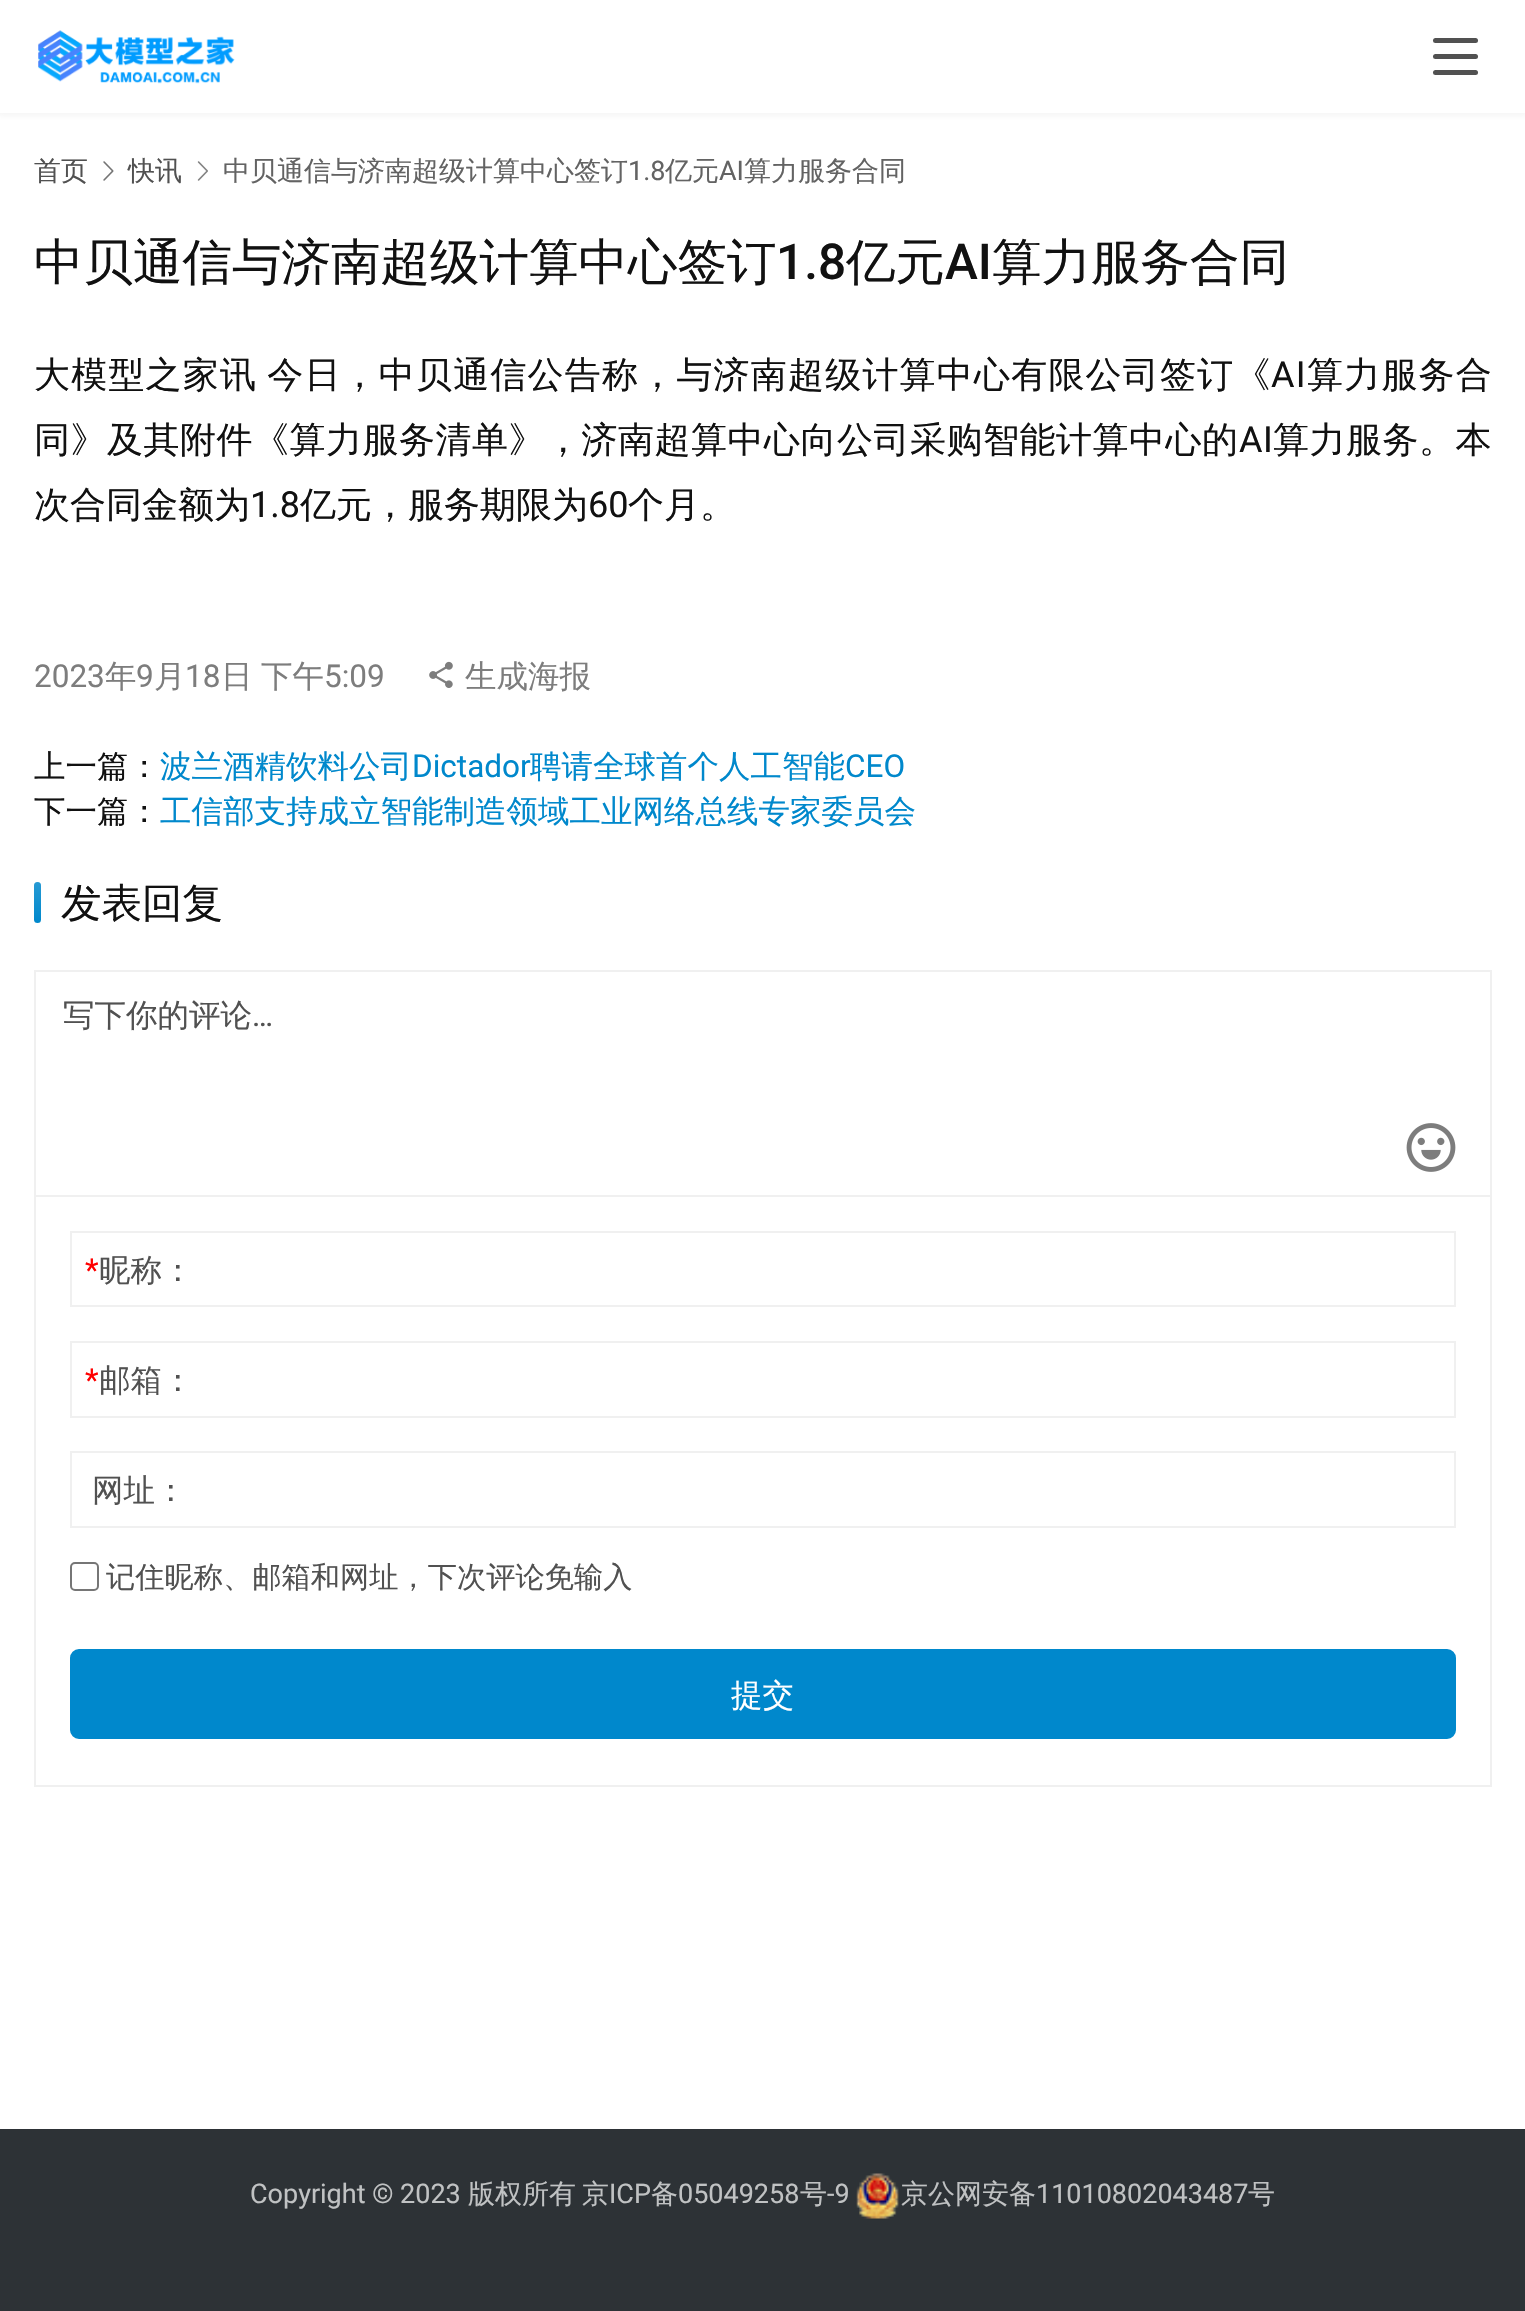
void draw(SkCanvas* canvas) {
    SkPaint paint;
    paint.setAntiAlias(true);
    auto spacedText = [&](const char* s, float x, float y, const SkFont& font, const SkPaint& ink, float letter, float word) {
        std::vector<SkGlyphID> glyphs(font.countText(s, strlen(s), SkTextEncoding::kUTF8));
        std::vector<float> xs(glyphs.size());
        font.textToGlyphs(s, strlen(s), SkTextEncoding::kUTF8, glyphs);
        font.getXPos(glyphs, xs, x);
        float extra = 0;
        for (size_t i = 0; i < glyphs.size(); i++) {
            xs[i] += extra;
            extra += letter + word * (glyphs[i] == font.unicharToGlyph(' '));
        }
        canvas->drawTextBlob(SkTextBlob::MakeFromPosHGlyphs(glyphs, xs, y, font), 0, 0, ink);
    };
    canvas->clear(0xFFFFFFFF);
    paint.setColor(0x0F262626);
    paint.setMaskFilter(SkMaskFilter::MakeBlur(kNormal_SkBlurStyle, 3.5f));
    canvas->drawRect(SkRect::MakeXYWH(-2, -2, 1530, 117), paint);
    paint.setMaskFilter(nullptr);
    paint.setColor(0xFFFFFFFF);
    canvas->drawRect(SkRect::MakeXYWH(0, 0, 1525, 113), paint);
    canvas->drawImageRect(SkImages::DeferredFromEncodedData(SkData::MakeFromFileName("img1.png")), SkRect::MakeXYWH(38, 30, 197, 54), SkSamplingOptions());
    paint.setColor(0xFF515151);
    canvas->drawRoundRect(SkRect::MakeXYWH(1433, 38, 45, 5), 2.5f, 2.5f, paint);
    canvas->drawRoundRect(SkRect::MakeXYWH(1433, 54, 45, 5), 2.5f, 2.5f, paint);
    canvas->drawRoundRect(SkRect::MakeXYWH(1433, 70, 45, 5), 2.5f, 2.5f, paint);
    SkFont font1(fontMgr->matchFamilyStyle("WenQuanYi Zen Hei", SkFontStyle(500, SkFontStyle::kNormal_Width, SkFontStyle::kUpright_Slant)), 27);
    font1.setSubpixel(true);
    canvas->drawString("首页", 34, 180, font1, paint);
    canvas->drawImageRect(SkImages::DeferredFromEncodedData(SkData::MakeFromFileName("img2.png")), SkRect::MakeXYWH(103, 161, 11, 20), SkSamplingOptions());
    canvas->drawString("快讯", 128, 180, font1, paint);
    canvas->drawImageRect(SkImages::DeferredFromEncodedData(SkData::MakeFromFileName("img3.png")), SkRect::MakeXYWH(197, 161, 11, 20), SkSamplingOptions());
    paint.setColor(0xFF636363);
    canvas->drawString("中贝通信与济南超级计算中心签订", 223, 180, font1, paint);
    SkFont font2(fontMgr->matchFamilyStyle("Roboto", SkFontStyle::Normal()), 27);
    font2.setSubpixel(true);
    canvas->drawString("1.8", 628, 180, font2, paint);
    canvas->drawString("亿元", 665, 180, font1, paint);
    canvas->drawString("AI", 719, 180, font2, paint);
    canvas->drawString("算力服务合同", 744, 180, font1, paint);
    SkFont font3(fontMgr->matchFamilyStyle("WenQuanYi Zen Hei", SkFontStyle(500, SkFontStyle::kNormal_Width, SkFontStyle::kUpright_Slant)), 49.5f);
    font3.setSubpixel(true);
    paint.setColor(0xFF111111);
    canvas->drawString("中贝通信与济南超级计算中心签订", 34, 279, font3, paint);
    SkFont font4(fontMgr->matchFamilyStyle("Roboto", SkFontStyle(500, SkFontStyle::kNormal_Width, SkFontStyle::kUpright_Slant)), 49.5f);
    font4.setSubpixel(true);
    canvas->drawString("1.8", 776, 279, font4, paint);
    canvas->drawString("亿元", 846, 279, font3, paint);
    canvas->drawString("AI", 945, 279, font4, paint);
    canvas->drawString("算力服务合同", 992, 279, font3, paint);
    SkFont font5(fontMgr->matchFamilyStyle("WenQuanYi Zen Hei", SkFontStyle(500, SkFontStyle::kNormal_Width, SkFontStyle::kUpright_Slant)), 36);
    font5.setSubpixel(true);
    spacedText("大模型之家讯 今日，中贝通信公告称，与济南超级计算中心有限公司签订《", 34, 387, font5, paint, 1.2f, -2);
    SkFont font6(fontMgr->matchFamilyStyle("Roboto", SkFontStyle::Normal()), 36);
    font6.setSubpixel(true);
    spacedText("AI", 1271, 387, font6, paint, 1.2f, 0);
    spacedText("算力服务合", 1307, 387, font5, paint, 1.2f, 0);
    spacedText("同》及其附件《算力服务清单》，济南超算中心向公司采购智能计算中心的", 34, 452, font5, paint, 0.5f, 0);
    spacedText("AI", 1239, 452, font6, paint, 0.5f, 0);
    spacedText("算力服务。本", 1273, 452, font5, paint, 0.5f, 0);
    canvas->drawString("次合同金额为", 34, 517, font5, paint);
    canvas->drawString("1.8", 250, 517, font6, paint);
    canvas->drawString("亿元，服务期限为", 300, 517, font5, paint);
    canvas->drawString("60", 588, 517, font6, paint);
    canvas->drawString("个月。", 628, 517, font5, paint);
    SkFont font7(fontMgr->matchFamilyStyle("Roboto", SkFontStyle::Normal()), 31.5f);
    font7.setSubpixel(true);
    paint.setColor(0xFF7D7D7D);
    canvas->drawString("2023", 34, 687, font7, paint);
    SkFont font8(fontMgr->matchFamilyStyle("WenQuanYi Zen Hei", SkFontStyle(500, SkFontStyle::kNormal_Width, SkFontStyle::kUpright_Slant)), 31.5f);
    font8.setSubpixel(true);
    canvas->drawString("年", 105, 687, font8, paint);
    canvas->drawString("9", 136, 687, font7, paint);
    canvas->drawString("月", 154, 687, font8, paint);
    canvas->drawString("18", 185, 687, font7, paint);
    spacedText("日 下午", 221, 687, font8, paint, 0, -1);
    canvas->drawString("5:09", 324, 687, font7, paint);
    canvas->drawImageRect(SkImages::DeferredFromEncodedData(SkData::MakeFromFileName("img4.png")), SkRect::MakeXYWH(429, 661, 24, 27), SkSamplingOptions());
    canvas->drawString("生成海报", 465, 687, font8, paint);
    paint.setColor(0xFF111111);
    canvas->drawString("上一篇：", 34, 777, font8, paint);
    paint.setColor(0xFF0088CC);
    canvas->drawString("波兰酒精饮料公司", 160, 777, font8, paint);
    canvas->drawString("Dictador", 412, 777, font7, paint);
    canvas->drawString("聘请全球首个人工智能", 530, 777, font8, paint);
    canvas->drawString("CEO", 845, 777, font7, paint);
    paint.setColor(0xFF111111);
    canvas->drawString("下一篇：", 34, 822, font8, paint);
    paint.setColor(0xFF0088CC);
    canvas->drawString("工信部支持成立智能制造领域工业网络总线专家委员会", 160, 822, font8, paint);
    canvas->drawRoundRect(SkRect::MakeXYWH(34, 882, 7, 41), 3.5f, 3.5f, paint);
    {
        const SkColor colors[] = {0x26FFFFFF, 0x00FFFFFF};
        const float stops[] = {0, 1};
        const SkPoint ends[] = {{37, 882}, {37, 923}};
        paint.setShader(SkGradientShader::MakeLinear(ends, colors, stops, 2, SkTileMode::kClamp));
        paint.setAlpha(255);
    }
    canvas->drawRoundRect(SkRect::MakeXYWH(34, 882, 7, 41), 3.5f, 3.5f, paint);
    SkFont font9(fontMgr->matchFamilyStyle("WenQuanYi Zen Hei", SkFontStyle(500, SkFontStyle::kNormal_Width, SkFontStyle::kUpright_Slant)), 40.5f);
    font9.setSubpixel(true);
    paint.setShader(nullptr);
    paint.setColor(0xFF111111);
    canvas->drawString("发表回复", 61, 917, font9, paint);
    paint.setStyle(SkPaint::kStroke_Style);
    paint.setStrokeWidth(2);
    paint.setColor(0xFFF0F0F0);
    canvas->drawRect(SkRect::MakeXYWH(35, 971, 1456, 815), paint);
    paint.setStyle(SkPaint::kFill_Style);
    canvas->drawRect(SkRect::MakeXYWH(36, 1195, 1454, 2), paint);
    paint.setColor(0xFF515151);
    canvas->drawString("写下你的评论", 63, 1026, font8, paint);
    canvas->drawString("…", 252, 1026, font7, paint);
    canvas->drawImageRect(SkImages::DeferredFromEncodedData(SkData::MakeFromFileName("img5.png")), SkRect::MakeXYWH(1406, 1123, 50, 49), SkSamplingOptions());
    paint.setStyle(SkPaint::kStroke_Style);
    paint.setColor(0xFFF0F0F0);
    canvas->drawRect(SkRect::MakeXYWH(71, 1232, 1384, 74), paint);
    paint.setStyle(SkPaint::kFill_Style);
    paint.setColor(0xFFFF0000);
    canvas->drawString("*", 85, 1281, font7, paint);
    paint.setColor(0xFF515151);
    canvas->drawString("昵称：", 99, 1281, font8, paint);
    paint.setStyle(SkPaint::kStroke_Style);
    paint.setColor(0xFFF0F0F0);
    canvas->drawRect(SkRect::MakeXYWH(71, 1342, 1384, 75), paint);
    paint.setStyle(SkPaint::kFill_Style);
    paint.setColor(0xFFFF0000);
    canvas->drawString("*", 85, 1391, font7, paint);
    paint.setColor(0xFF515151);
    canvas->drawString("邮箱：", 99, 1391, font8, paint);
    paint.setStyle(SkPaint::kStroke_Style);
    paint.setColor(0xFFF0F0F0);
    canvas->drawRect(SkRect::MakeXYWH(71, 1452, 1384, 75), paint);
    paint.setStyle(SkPaint::kFill_Style);
    paint.setColor(0xFF515151);
    canvas->drawString("网址：", 92, 1501, font8, paint);
    paint.setStyle(SkPaint::kStroke_Style);
    paint.setColor(0xFF767676);
    canvas->drawRoundRect(SkRect::MakeXYWH(71, 1563, 27, 27), 4, 4, paint);
    SkFont font10(fontMgr->matchFamilyStyle("WenQuanYi Zen Hei", SkFontStyle(500, SkFontStyle::kNormal_Width, SkFontStyle::kUpright_Slant)), 29.25f);
    font10.setSubpixel(true);
    paint.setStyle(SkPaint::kFill_Style);
    paint.setColor(0xFF515151);
    canvas->drawString("记住昵称、邮箱和网址，下次评论免输入", 106, 1587, font10, paint);
    paint.setColor(0xFF0088CC);
    canvas->drawRoundRect(SkRect::MakeXYWH(71, 1650, 1384, 88), 8, 8, paint);
    paint.setStyle(SkPaint::kStroke_Style);
    canvas->drawRoundRect(SkRect::MakeXYWH(71, 1650, 1384, 88), 8, 8, paint);
    paint.setStyle(SkPaint::kFill_Style);
    paint.setColor(0xFFFFFFFF);
    canvas->drawString("提交", 731, 1706, font8, paint);
    paint.setColor(0xFF2D3236);
    canvas->drawRect(SkRect::MakeXYWH(0, 2129, 1525, 182), paint);
    paint.setColor(0xFFC0C2C3);
    canvas->drawString("Copyright © 2023", 250, 2203, font2, paint);
    canvas->drawString("版权所有", 468, 2203, font1, paint);
    canvas->drawString("京", 582, 2203, font1, paint);
    canvas->drawString("ICP", 609, 2203, font2, paint);
    canvas->drawString("备", 651, 2203, font1, paint);
    canvas->drawString("05049258", 678, 2203, font2, paint);
    canvas->drawString("号", 800, 2203, font1, paint);
    canvas->drawString("-9", 827, 2203, font2, paint);
    canvas->drawImageRect(SkImages::DeferredFromEncodedData(SkData::MakeFromFileName("img6.png")), SkRect::MakeXYWH(856, 2173, 43, 46), SkSamplingOptions());
    canvas->drawString("京公网安备", 901, 2203, font1, paint);
    canvas->drawString("11010802043487", 1036, 2203, font2, paint);
    canvas->drawString("号", 1248, 2203, font1, paint);
}
